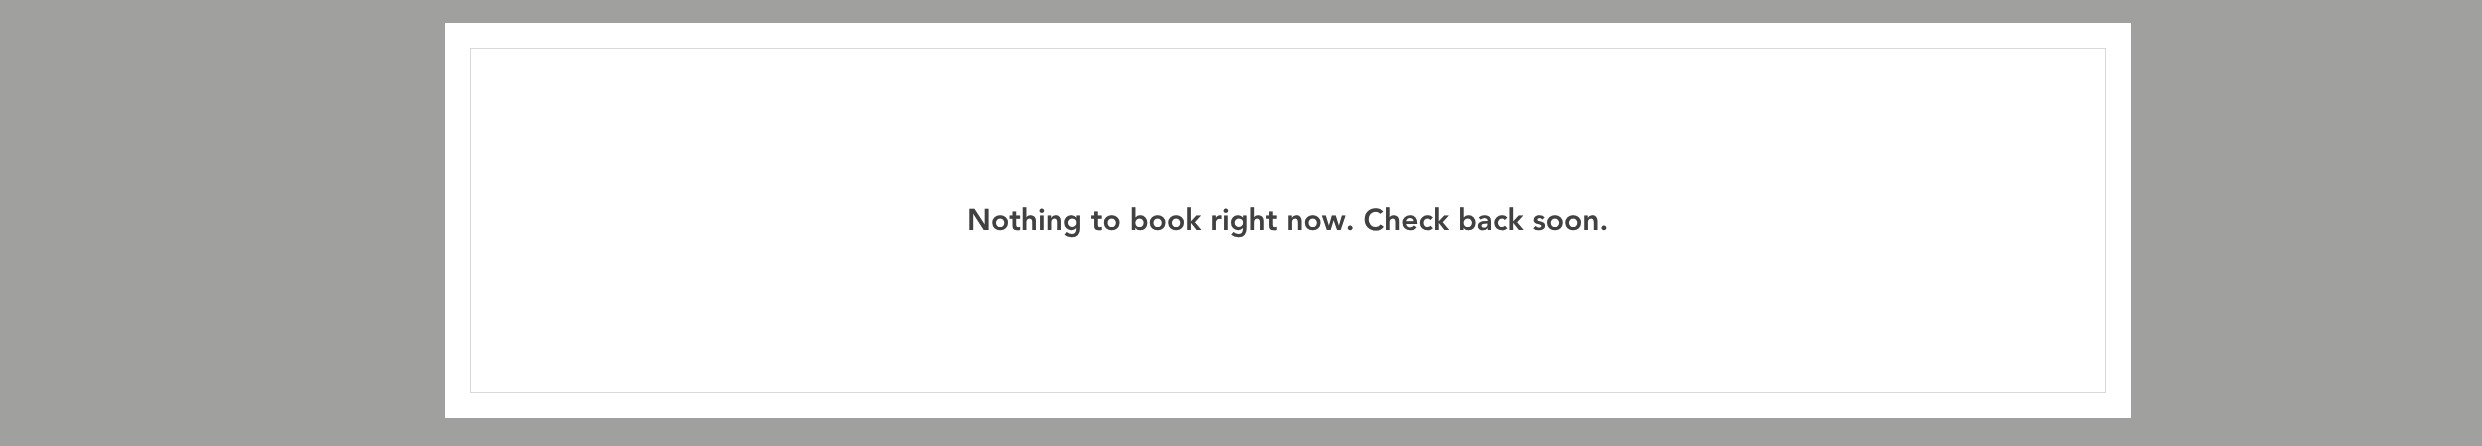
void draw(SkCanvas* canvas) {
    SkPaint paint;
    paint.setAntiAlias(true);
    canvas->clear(0xFFA0A09F);
    paint.setColor(0xFFFFFFFF);
    canvas->drawRect(SkRect::MakeXYWH(445, 23, 1686, 395), paint);
    paint.setStyle(SkPaint::kStroke_Style);
    paint.setStrokeWidth(1);
    paint.setColor(0xFFD9D9D9);
    canvas->drawRect(SkRect::MakeXYWH(470.5f, 48.5f, 1635, 344), paint);
    SkFont font1(fontMgr->matchFamilyStyle("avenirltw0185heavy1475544", SkFontStyle(900, SkFontStyle::kNormal_Width, SkFontStyle::kUpright_Slant)), 30);
    font1.setSubpixel(true);
    paint.setStyle(SkPaint::kFill_Style);
    paint.setColor(0xFF414141);
    canvas->drawString("Nothing to book right now. Check back soon.", 967, 230, font1, paint);
}
